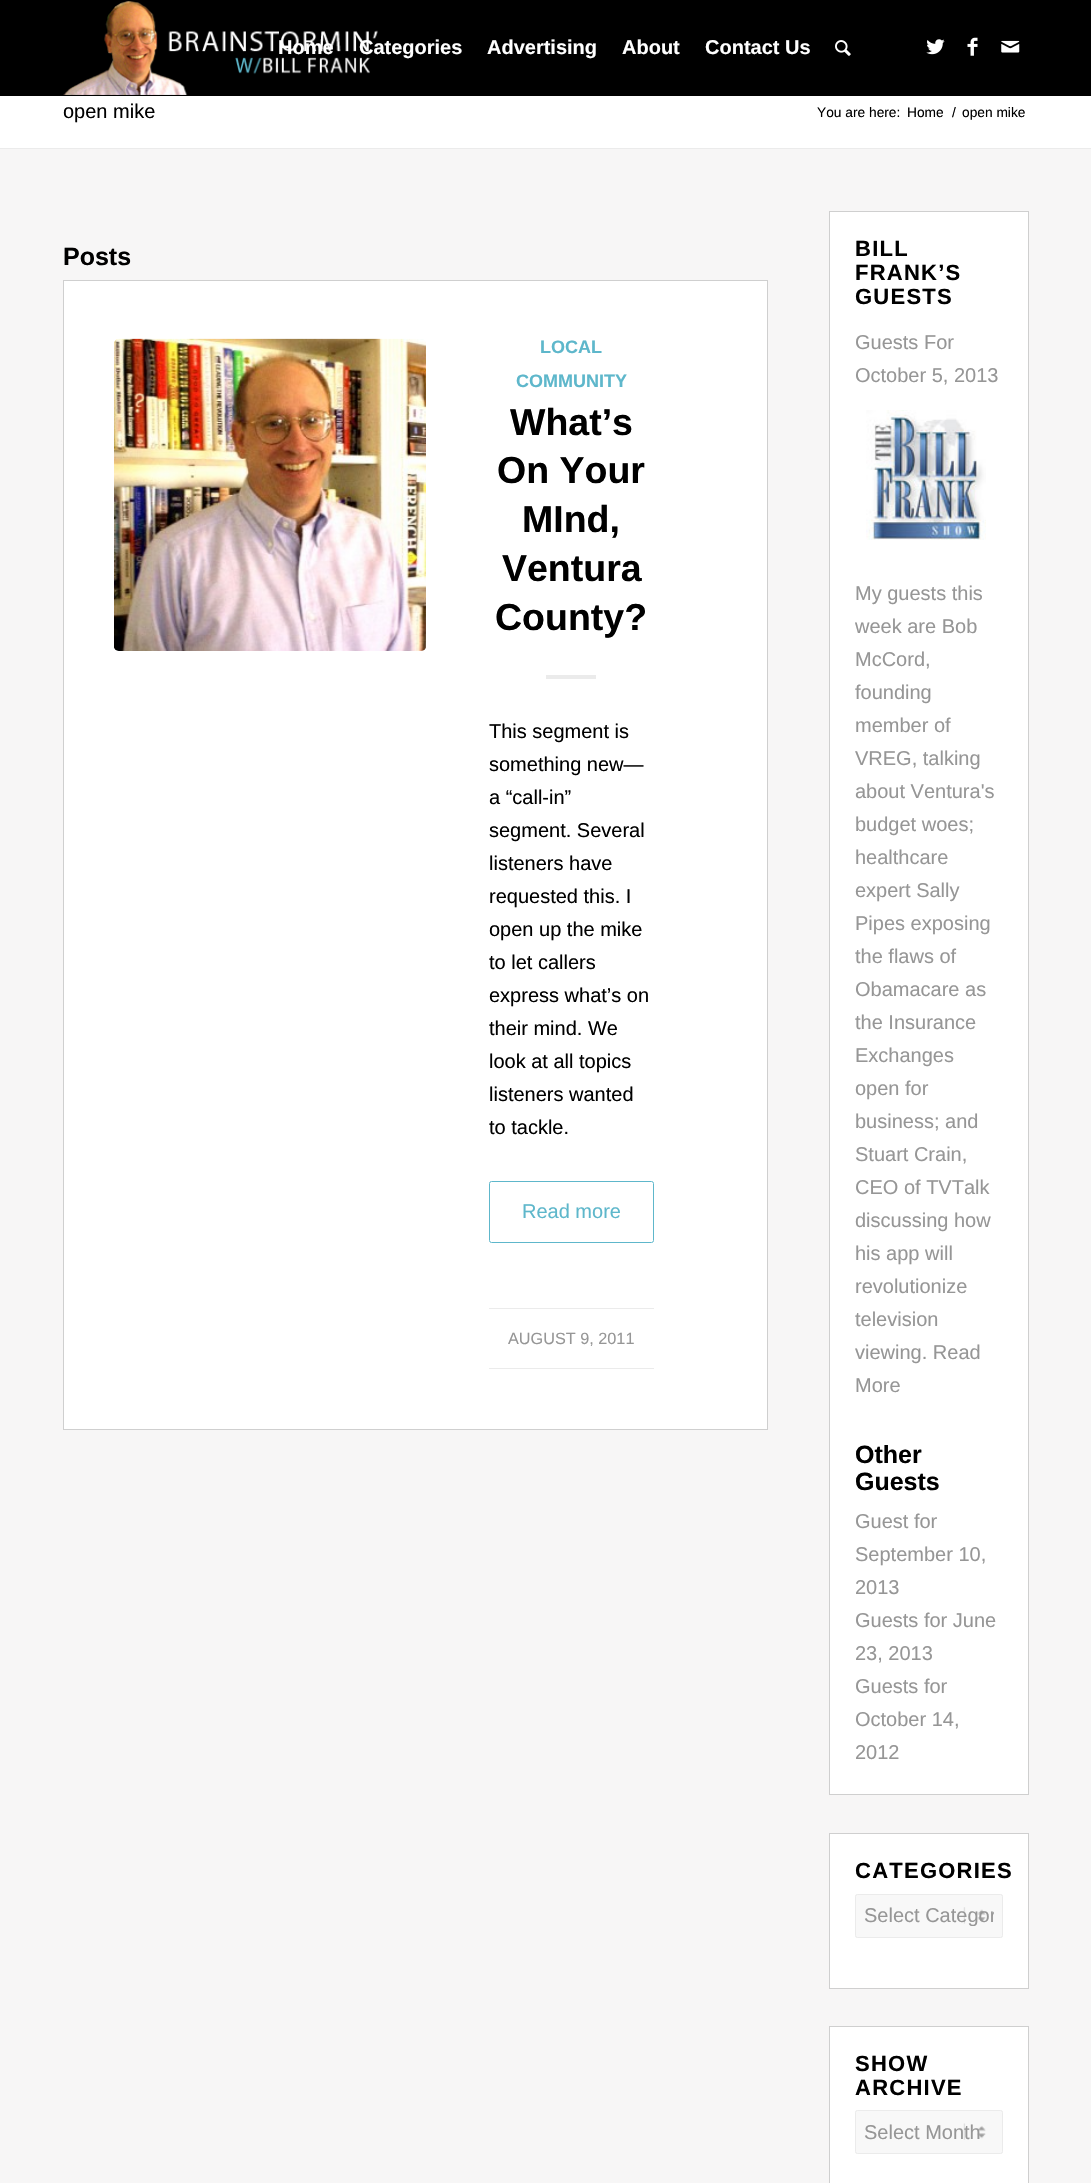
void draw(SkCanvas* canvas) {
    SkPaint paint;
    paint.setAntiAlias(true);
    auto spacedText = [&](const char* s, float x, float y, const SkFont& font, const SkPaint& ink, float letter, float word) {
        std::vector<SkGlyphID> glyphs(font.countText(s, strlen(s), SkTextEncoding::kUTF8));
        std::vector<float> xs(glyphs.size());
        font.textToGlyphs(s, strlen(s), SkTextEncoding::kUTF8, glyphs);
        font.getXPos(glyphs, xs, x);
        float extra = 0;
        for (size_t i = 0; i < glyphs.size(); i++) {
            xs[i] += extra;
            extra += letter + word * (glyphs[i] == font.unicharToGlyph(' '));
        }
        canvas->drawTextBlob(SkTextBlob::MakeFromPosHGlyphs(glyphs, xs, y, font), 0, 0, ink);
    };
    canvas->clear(0xFFFFFFFF);
    paint.setColor(0xFF000000);
    canvas->drawRect(SkRect::MakeXYWH(0, 0, 1091, 96), paint);
    canvas->drawImageRect(SkImages::DeferredFromEncodedData(SkData::MakeFromFileName("img1.png")), SkRect::MakeXYWH(63, 1, 315, 94), SkSamplingOptions());
    SkFont font1(fontMgr->matchFamilyStyle("Liberation Sans", SkFontStyle::Bold()), 20);
    font1.setSubpixel(true);
    paint.setColor(0xFFFFFFFF);
    canvas->drawString("Home", 278, 54, font1, paint);
    canvas->drawString("Categories", 359, 54, font1, paint);
    canvas->drawString("Advertising", 487, 54, font1, paint);
    canvas->drawString("About", 622, 54, font1, paint);
    canvas->drawString("Contact Us", 705, 54, font1, paint);
    canvas->drawImageRect(SkImages::DeferredFromEncodedData(SkData::MakeFromFileName("img2.png")), SkRect::MakeXYWH(835, 40, 16, 16), SkSamplingOptions());
    canvas->drawImageRect(SkImages::DeferredFromEncodedData(SkData::MakeFromFileName("img3.png")), SkRect::MakeXYWH(926, 39, 19, 16), SkSamplingOptions());
    canvas->drawImageRect(SkImages::DeferredFromEncodedData(SkData::MakeFromFileName("img4.png")), SkRect::MakeXYWH(967, 37, 11, 19), SkSamplingOptions());
    canvas->drawImageRect(SkImages::DeferredFromEncodedData(SkData::MakeFromFileName("img5.png")), SkRect::MakeXYWH(1001, 40, 19, 13), SkSamplingOptions());
    SkFont font2(fontMgr->matchFamilyStyle("Liberation Sans", SkFontStyle::Normal()), 20);
    font2.setSubpixel(true);
    paint.setColor(0xFF000000);
    canvas->drawString("open mike", 63, 118, font2, paint);
    SkFont font3(fontMgr->matchFamilyStyle("Liberation Sans", SkFontStyle::Normal()), 13.75f);
    font3.setSubpixel(true);
    canvas->drawString("You are here:", 817, 117, font3, paint);
    canvas->drawString("Home", 907, 117, font3, paint);
    canvas->drawString("/", 952, 117, font3, paint);
    canvas->drawString("open mike", 962, 117, font3, paint);
    paint.setColor(0xFFF7F6F6);
    canvas->drawRect(SkRect::MakeXYWH(0, 149, 1091, 2034), paint);
    paint.setColor(0xFFEBEBEB);
    canvas->drawRect(SkRect::MakeXYWH(0, 148, 1091, 1), paint);
    SkFont font4(fontMgr->matchFamilyStyle("Liberation Sans", SkFontStyle::Bold()), 25);
    font4.setSubpixel(true);
    paint.setColor(0xFF000000);
    canvas->drawString("Posts", 63, 265, font4, paint);
    paint.setColor(0xFFFFFFFF);
    canvas->drawRect(SkRect::MakeXYWH(63.5f, 280.5f, 704, 1149), paint);
    paint.setStyle(SkPaint::kStroke_Style);
    paint.setStrokeWidth(1);
    paint.setColor(0xFFCFCFCF);
    canvas->drawRect(SkRect::MakeXYWH(63.5f, 280.5f, 704, 1149), paint);
    canvas->drawImageRect(SkImages::DeferredFromEncodedData(SkData::MakeFromFileName("img6.png")), SkRect::MakeXYWH(114, 338, 312, 313), SkSamplingOptions());
    SkFont font5(fontMgr->matchFamilyStyle("Liberation Sans", SkFontStyle::Bold()), 18);
    font5.setSubpixel(true);
    paint.setStyle(SkPaint::kFill_Style);
    paint.setColor(0xFF5EB7CB);
    canvas->drawString("LOCAL", 540, 353, font5, paint);
    canvas->drawString("COMMUNITY", 516, 387, font5, paint);
    SkFont font6(fontMgr->matchFamilyStyle("Liberation Sans", SkFontStyle::Bold()), 37.5f);
    font6.setSubpixel(true);
    paint.setColor(0xFF000000);
    canvas->drawString("What’s", 510, 435, font6, paint);
    canvas->drawString("On Your", 497, 483, font6, paint);
    canvas->drawString("MInd,", 522, 532, font6, paint);
    canvas->drawString("Ventura", 502, 581, font6, paint);
    canvas->drawString("County?", 495, 630, font6, paint);
    paint.setColor(0xFFEBEBEB);
    canvas->drawRect(SkRect::MakeXYWH(546, 675, 50, 4), paint);
    paint.setColor(0xFF000000);
    canvas->drawString("This segment is", 489, 738, font2, paint);
    canvas->drawString("something new—", 489, 771, font2, paint);
    canvas->drawString("a “call-in”", 489, 804, font2, paint);
    canvas->drawString("segment. Several", 489, 837, font2, paint);
    canvas->drawString("listeners have", 489, 870, font2, paint);
    canvas->drawString("requested this. I", 489, 903, font2, paint);
    canvas->drawString("open up the mike", 489, 936, font2, paint);
    canvas->drawString("to let callers", 489, 969, font2, paint);
    canvas->drawString("express what’s on", 489, 1002, font2, paint);
    canvas->drawString("their mind. We", 489, 1035, font2, paint);
    canvas->drawString("look at all topics", 489, 1068, font2, paint);
    canvas->drawString("listeners wanted", 489, 1101, font2, paint);
    canvas->drawString("to tackle.", 489, 1134, font2, paint);
    paint.setStyle(SkPaint::kStroke_Style);
    paint.setColor(0xFF5EB7CB);
    canvas->drawRoundRect(SkRect::MakeXYWH(489.5f, 1181.5f, 164, 61), 2, 2, paint);
    paint.setStyle(SkPaint::kFill_Style);
    canvas->drawString("Read more", 522, 1218, font2, paint);
    paint.setColor(0xFFEBEBEB);
    canvas->drawRect(SkRect::MakeXYWH(489, 1308, 165, 1), paint);
    canvas->drawRect(SkRect::MakeXYWH(489, 1368, 165, 1), paint);
    SkFont font7(fontMgr->matchFamilyStyle("Liberation Sans", SkFontStyle::Normal()), 16.25f);
    font7.setSubpixel(true);
    paint.setColor(0xFF969696);
    canvas->drawString("AUGUST 9, 2011", 508, 1344, font7, paint);
    paint.setColor(0xFFFFFFFF);
    canvas->drawRect(SkRect::MakeXYWH(829.5f, 211.5f, 199, 1583), paint);
    paint.setStyle(SkPaint::kStroke_Style);
    paint.setColor(0xFFCFCFCF);
    canvas->drawRect(SkRect::MakeXYWH(829.5f, 211.5f, 199, 1583), paint);
    SkFont font8(fontMgr->matchFamilyStyle("Liberation Sans", SkFontStyle::Bold()), 22);
    font8.setSubpixel(true);
    paint.setStyle(SkPaint::kFill_Style);
    paint.setColor(0xFF000000);
    spacedText("BILL", 855, 256, font8, paint, 1.25f, 0);
    spacedText("FRANK’S", 855, 280, font8, paint, 1.25f, 0);
    spacedText("GUESTS", 855, 304, font8, paint, 1.25f, 0);
    paint.setColor(0xFF969696);
    canvas->drawString("Guests For", 855, 349, font2, paint);
    canvas->drawString("October 5, 2013", 855, 382, font2, paint);
    canvas->drawImageRect(SkImages::DeferredFromEncodedData(SkData::MakeFromFileName("img7.png")), SkRect::MakeXYWH(866, 410, 120, 130), SkSamplingOptions());
    canvas->drawString("My guests this", 855, 600, font2, paint);
    canvas->drawString("week are Bob", 855, 633, font2, paint);
    canvas->drawString("McCord,", 855, 666, font2, paint);
    canvas->drawString("founding", 855, 699, font2, paint);
    canvas->drawString("member of", 855, 732, font2, paint);
    canvas->drawString("VREG, talking", 855, 765, font2, paint);
    canvas->drawString("about Ventura's", 855, 798, font2, paint);
    canvas->drawString("budget woes;", 855, 831, font2, paint);
    canvas->drawString("healthcare", 855, 864, font2, paint);
    canvas->drawString("expert Sally", 855, 897, font2, paint);
    canvas->drawString("Pipes exposing", 855, 930, font2, paint);
    canvas->drawString("the flaws of", 855, 963, font2, paint);
    canvas->drawString("Obamacare as", 855, 996, font2, paint);
    canvas->drawString("the Insurance", 855, 1029, font2, paint);
    canvas->drawString("Exchanges", 855, 1062, font2, paint);
    canvas->drawString("open for", 855, 1095, font2, paint);
    canvas->drawString("business; and", 855, 1128, font2, paint);
    canvas->drawString("Stuart Crain,", 855, 1161, font2, paint);
    canvas->drawString("CEO of TVTalk", 855, 1194, font2, paint);
    canvas->drawString("discussing how", 855, 1227, font2, paint);
    canvas->drawString("his app will", 855, 1260, font2, paint);
    canvas->drawString("revolutionize", 855, 1293, font2, paint);
    canvas->drawString("television", 855, 1326, font2, paint);
    canvas->drawString("viewing. Read", 855, 1359, font2, paint);
    canvas->drawString("More", 855, 1392, font2, paint);
    paint.setColor(0xFF000000);
    canvas->drawString("Other", 855, 1463, font4, paint);
    canvas->drawString("Guests", 855, 1490, font4, paint);
    paint.setColor(0xFF969696);
    canvas->drawString("Guest for", 855, 1528, font2, paint);
    canvas->drawString("September 10,", 855, 1561, font2, paint);
    canvas->drawString("2013", 855, 1594, font2, paint);
    canvas->drawString("Guests for June", 855, 1627, font2, paint);
    canvas->drawString("23, 2013", 855, 1660, font2, paint);
    canvas->drawString("Guests for", 855, 1693, font2, paint);
    canvas->drawString("October 14,", 855, 1726, font2, paint);
    canvas->drawString("2012", 855, 1759, font2, paint);
    paint.setColor(0xFFFFFFFF);
    canvas->drawRect(SkRect::MakeXYWH(829.5f, 1833.5f, 199, 155), paint);
    paint.setStyle(SkPaint::kStroke_Style);
    paint.setColor(0xFFCFCFCF);
    canvas->drawRect(SkRect::MakeXYWH(829.5f, 1833.5f, 199, 155), paint);
    paint.setStyle(SkPaint::kFill_Style);
    paint.setColor(0xFF000000);
    spacedText("CATEGORIES", 855, 1878, font8, paint, 1.25f, 0);
    paint.setColor(0xFFF8F8F8);
    canvas->drawRoundRect(SkRect::MakeXYWH(855, 1894, 148, 44), 2.5f, 2.5f, paint);
    canvas->drawImageRect(SkImages::DeferredFromEncodedData(SkData::MakeFromFileName("img8.png")), SkRect::MakeXYWH(963, 1907, 23, 17), SkSamplingOptions());
    paint.setStyle(SkPaint::kStroke_Style);
    paint.setColor(0xFFEBEBEB);
    canvas->drawRoundRect(SkRect::MakeXYWH(855.5f, 1894.5f, 147, 43), 2, 2, paint);
    canvas->save();
    canvas->clipRect(SkRect::MakeXYWH(864, 1905, 130, 21));
    paint.setStyle(SkPaint::kFill_Style);
    paint.setColor(0xFF969696);
    canvas->drawString("Select Categor", 864, 1922, font2, paint);
    canvas->restore();
    paint.setColor(0xFFFFFFFF);
    canvas->drawRect(SkRect::MakeXYWH(829.5f, 2026.5f, 199, 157), paint);
    paint.setStyle(SkPaint::kStroke_Style);
    paint.setColor(0xFFCFCFCF);
    canvas->drawRect(SkRect::MakeXYWH(829.5f, 2026.5f, 199, 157), paint);
    paint.setStyle(SkPaint::kFill_Style);
    paint.setColor(0xFF000000);
    spacedText("SHOW", 855, 2071, font8, paint, 1.25f, 0);
    spacedText("ARCHIVE", 855, 2095, font8, paint, 1.25f, 0);
    paint.setColor(0xFFF8F8F8);
    canvas->drawRoundRect(SkRect::MakeXYWH(855, 2110, 148, 44), 2.5f, 2.5f, paint);
    canvas->drawImageRect(SkImages::DeferredFromEncodedData(SkData::MakeFromFileName("img9.png")), SkRect::MakeXYWH(963, 2123, 23, 17), SkSamplingOptions());
    paint.setStyle(SkPaint::kStroke_Style);
    paint.setColor(0xFFEBEBEB);
    canvas->drawRoundRect(SkRect::MakeXYWH(855.5f, 2110.5f, 147, 43), 2, 2, paint);
    paint.setStyle(SkPaint::kFill_Style);
    paint.setColor(0xFF969696);
    canvas->drawString("Select Month", 864, 2139, font2, paint);
}
